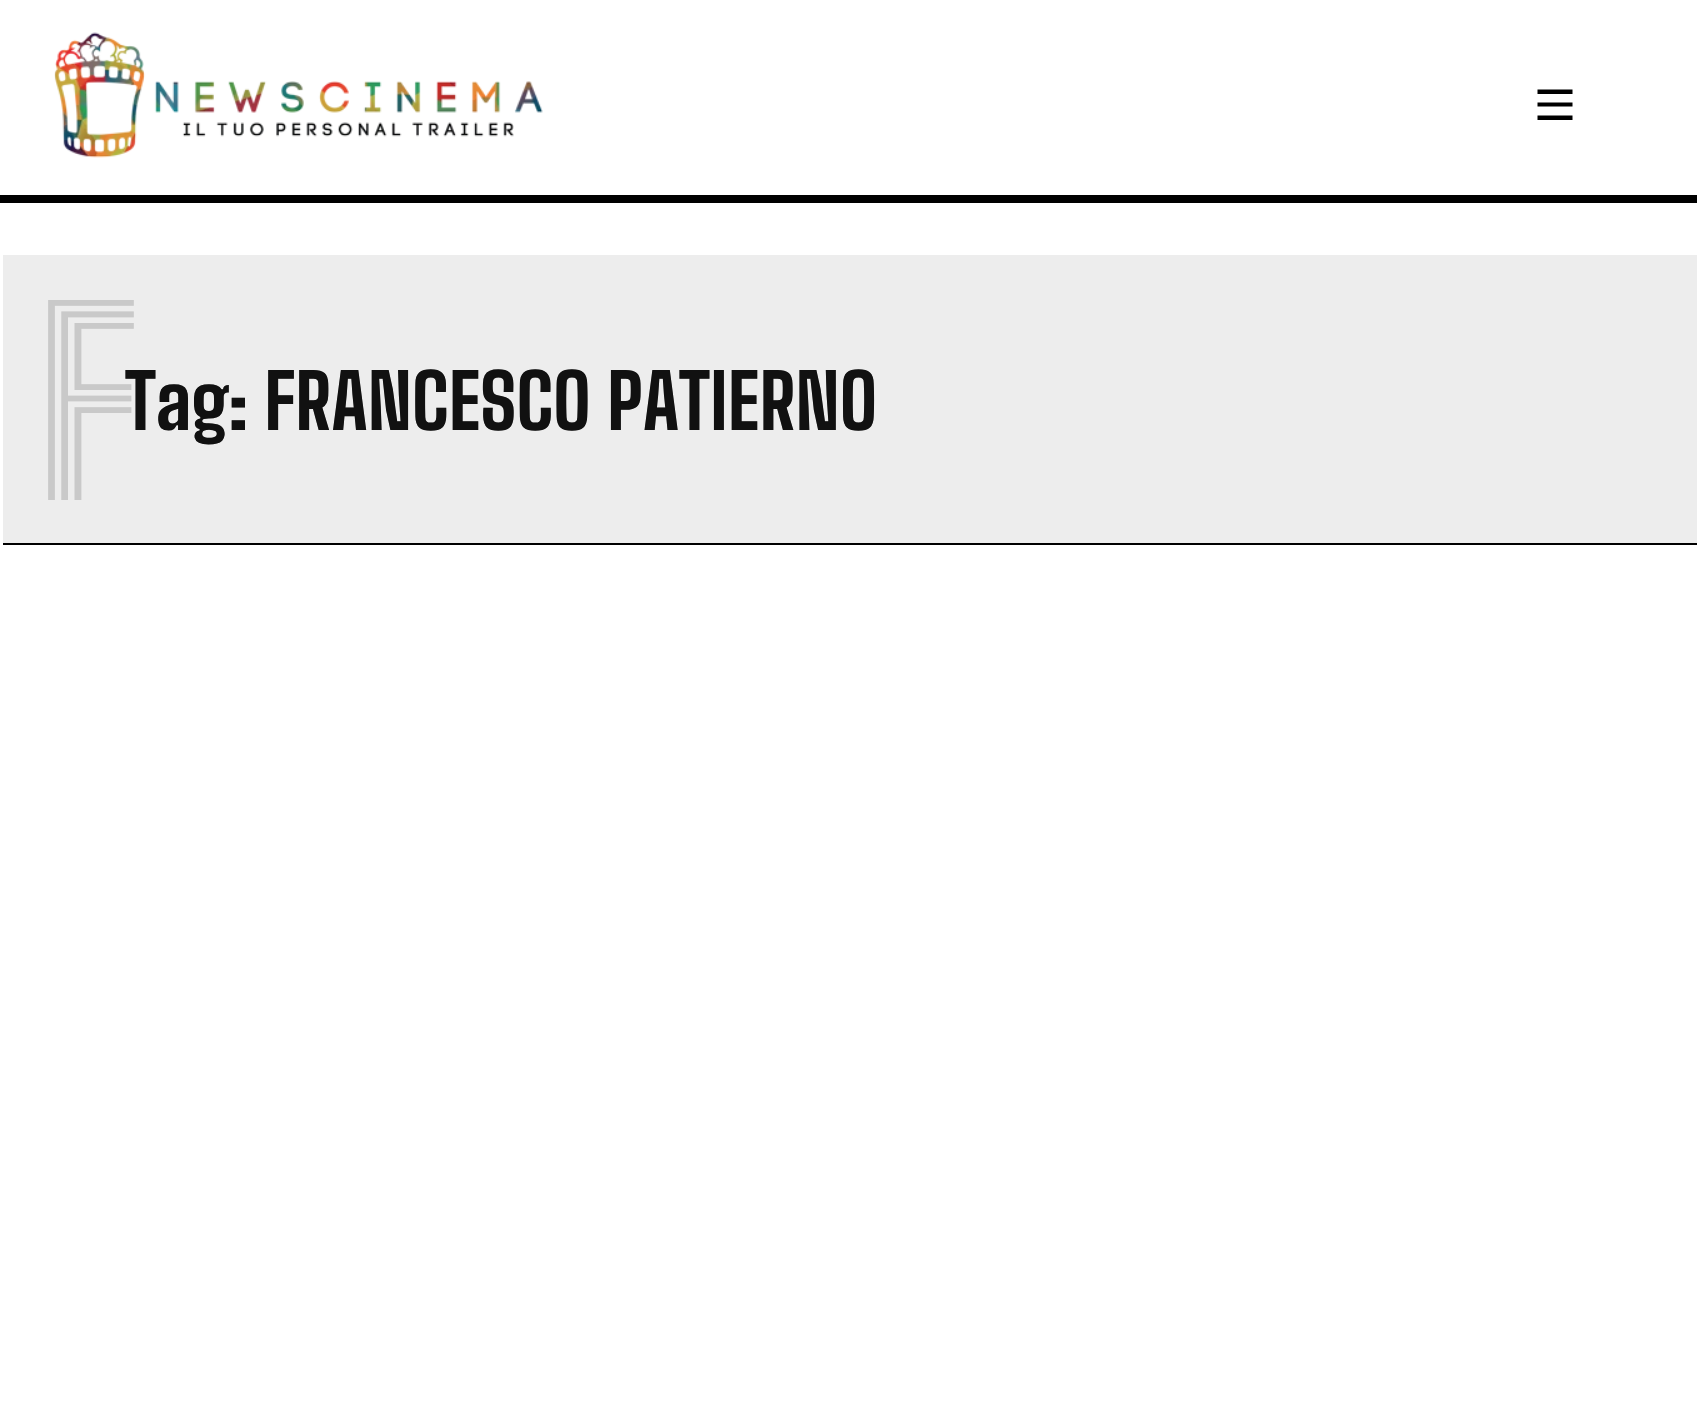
void draw(SkCanvas* canvas) {
    SkPaint paint;
    paint.setAntiAlias(true);
    canvas->clear(0xFFFFFFFF);
    paint.setColor(0xFF000000);
    canvas->drawRect(SkRect::MakeXYWH(0, 195, 1697, 8), paint);
    canvas->drawImageRect(SkImages::DeferredFromEncodedData(SkData::MakeFromFileName("img1.png")), SkRect::MakeXYWH(54, 32, 489, 126), SkSamplingOptions());
    canvas->drawPath(SkPathBuilder().moveTo(1537.5f, 89.5f).lineTo(1572.5f, 89.5f).lineTo(1572.5f, 94).lineTo(1537.5f, 94).close().moveTo(1537.5f, 102.5f).lineTo(1572.5f, 102.5f).lineTo(1572.5f, 106.5f).lineTo(1537.5f, 106.5f).close().moveTo(1537.5f, 115.5f).lineTo(1572.5f, 115.5f).lineTo(1572.5f, 120).lineTo(1537.5f, 120).close().detach(), paint);
    paint.setColor(0xFFEDEDED);
    canvas->drawRect(SkRect::MakeXYWH(3, 255, 1694, 288), paint);
    paint.setColor(0xFF000000);
    canvas->drawRect(SkRect::MakeXYWH(3, 543, 1694, 2), paint);
    SkFont font1(fontMgr->matchFamilyStyle("Big Shoulders Inline Text", SkFontStyle(800, SkFontStyle::kNormal_Width, SkFontStyle::kUpright_Slant)), 250);
    font1.setSubpixel(true);
    paint.setColor(0xFFC9C9C9);
    canvas->drawString("F", 35, 500, font1, paint);
    SkFont font2(fontMgr->matchFamilyStyle("Big Shoulders Text", SkFontStyle(800, SkFontStyle::kNormal_Width, SkFontStyle::kUpright_Slant)), 75);
    font2.setSubpixel(true);
    paint.setColor(0xFF111111);
    canvas->drawString("Tag: FRANCESCO PATIERNO", 125, 430, font2, paint);
}
